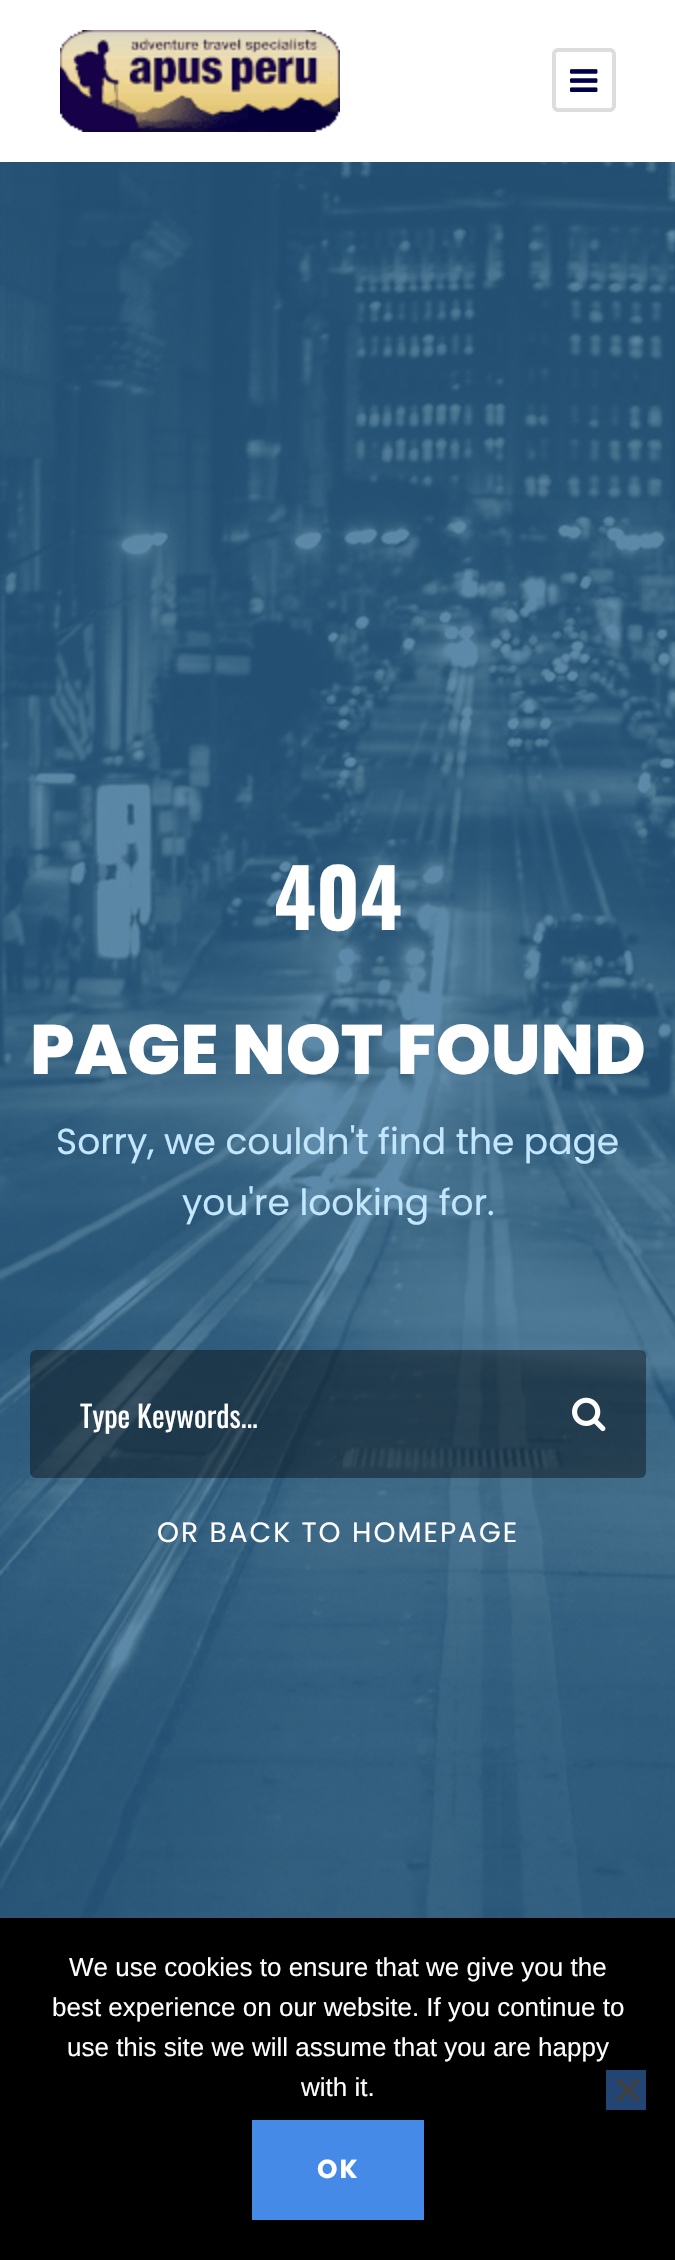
void draw(SkCanvas* canvas) {
    SkPaint paint;
    paint.setAntiAlias(true);
    auto spacedText = [&](const char* s, float x, float y, const SkFont& font, const SkPaint& ink, float letter, float word) {
        std::vector<SkGlyphID> glyphs(font.countText(s, strlen(s), SkTextEncoding::kUTF8));
        std::vector<float> xs(glyphs.size());
        font.textToGlyphs(s, strlen(s), SkTextEncoding::kUTF8, glyphs);
        font.getXPos(glyphs, xs, x);
        float extra = 0;
        for (size_t i = 0; i < glyphs.size(); i++) {
            xs[i] += extra;
            extra += letter + word * (glyphs[i] == font.unicharToGlyph(' '));
        }
        canvas->drawTextBlob(SkTextBlob::MakeFromPosHGlyphs(glyphs, xs, y, font), 0, 0, ink);
    };
    canvas->clear(0xFFFFFFFF);
    canvas->drawImageRect(SkImages::DeferredFromEncodedData(SkData::MakeFromFileName("img1.png")), SkRect::MakeXYWH(60, 30, 280, 102), SkSamplingOptions());
    paint.setStyle(SkPaint::kStroke_Style);
    paint.setStrokeWidth(4);
    paint.setColor(0xFFDDDDDD);
    canvas->drawRoundRect(SkRect::MakeXYWH(554, 50, 60, 60), 4, 4, paint);
    canvas->drawImageRect(SkImages::DeferredFromEncodedData(SkData::MakeFromFileName("img2.png")), SkRect::MakeXYWH(570, 69, 28, 23), SkSamplingOptions());
    paint.setStyle(SkPaint::kFill_Style);
    paint.setColor(0xFF23618E);
    canvas->drawRect(SkRect::MakeXYWH(0, 162, 675, 1756), paint);
    canvas->drawImageRect(SkImages::DeferredFromEncodedData(SkData::MakeFromFileName("img3.png")), SkRect::MakeXYWH(0, 162, 675, 1756), SkSamplingOptions());
    SkFont font1(fontMgr->matchFamilyStyle("Oswald", SkFontStyle::Bold()), 80);
    font1.setSubpixel(true);
    paint.setColor(0xFFFFFFFF);
    canvas->drawString("404", 274, 930, font1, paint);
    SkFont font2(fontMgr->matchFamilyStyle("Poppins", SkFontStyle(800, SkFontStyle::kNormal_Width, SkFontStyle::kUpright_Slant)), 70);
    font2.setSubpixel(true);
    canvas->drawString("PAGE NOT FOUND", 30, 1074, font2, paint);
    SkFont font3(fontMgr->matchFamilyStyle("Poppins", SkFontStyle::Normal()), 36);
    font3.setSubpixel(true);
    paint.setColor(0xFFC3E7FF);
    canvas->drawString("Sorry, we couldn't find the page", 56, 1154, font3, paint);
    canvas->drawString("you're looking for.", 182, 1215, font3, paint);
    paint.setColor(0x66000000);
    canvas->drawRoundRect(SkRect::MakeXYWH(30, 1350, 616, 128), 6, 6, paint);
    SkFont font4(fontMgr->matchFamilyStyle("Oswald", SkFontStyle::Normal()), 30);
    font4.setSubpixel(true);
    paint.setColor(0xFFFFFFFF);
    canvas->drawString("Type Keywords...", 80, 1428, font4, paint);
    canvas->drawImageRect(SkImages::DeferredFromEncodedData(SkData::MakeFromFileName("img4.png")), SkRect::MakeXYWH(572, 1397, 34, 35), SkSamplingOptions());
    SkFont font5(fontMgr->matchFamilyStyle("Poppins", SkFontStyle::Normal()), 28);
    font5.setSubpixel(true);
    spacedText("OR BACK TO HOMEPAGE", 157, 1542, font5, paint, 2, 0);
    paint.setColor(0xFF000000);
    canvas->drawRect(SkRect::MakeXYWH(0, 1918, 675, 342), paint);
    SkFont font6(fontMgr->matchFamilyStyle("Liberation Sans", SkFontStyle::Normal()), 26);
    font6.setSubpixel(true);
    paint.setColor(0xFFFFFFFF);
    canvas->drawString("We use cookies to ensure that we give you the", 69, 1976, font6, paint);
    canvas->drawString("best experience on our website. If you continue to", 52, 2016, font6, paint);
    canvas->drawString("use this site we will assume that you are happy", 67, 2056, font6, paint);
    canvas->drawString("with it.", 301, 2096, font6, paint);
    paint.setColor(0xFF234574);
    canvas->drawRect(SkRect::MakeXYWH(606, 2070, 40, 40), paint);
    paint.setColor(0xFF404040);
    canvas->drawPath(SkPathBuilder().moveTo(637, 2078).lineTo(640, 2081).lineTo(619, 2102).lineTo(616, 2099).close().detach(), paint);
    canvas->drawPath(SkPathBuilder().moveTo(616, 2081).lineTo(619, 2078).lineTo(640, 2099).lineTo(637, 2102).close().detach(), paint);
    paint.setColor(0xFF468AE7);
    canvas->drawRect(SkRect::MakeXYWH(252, 2120, 172, 100), paint);
    SkFont font7(fontMgr->matchFamilyStyle("Poppins", SkFontStyle::Bold()), 26);
    font7.setSubpixel(true);
    paint.setColor(0xFFFFFFFF);
    spacedText("OK", 317, 2178, font7, paint, 2, 0);
}
